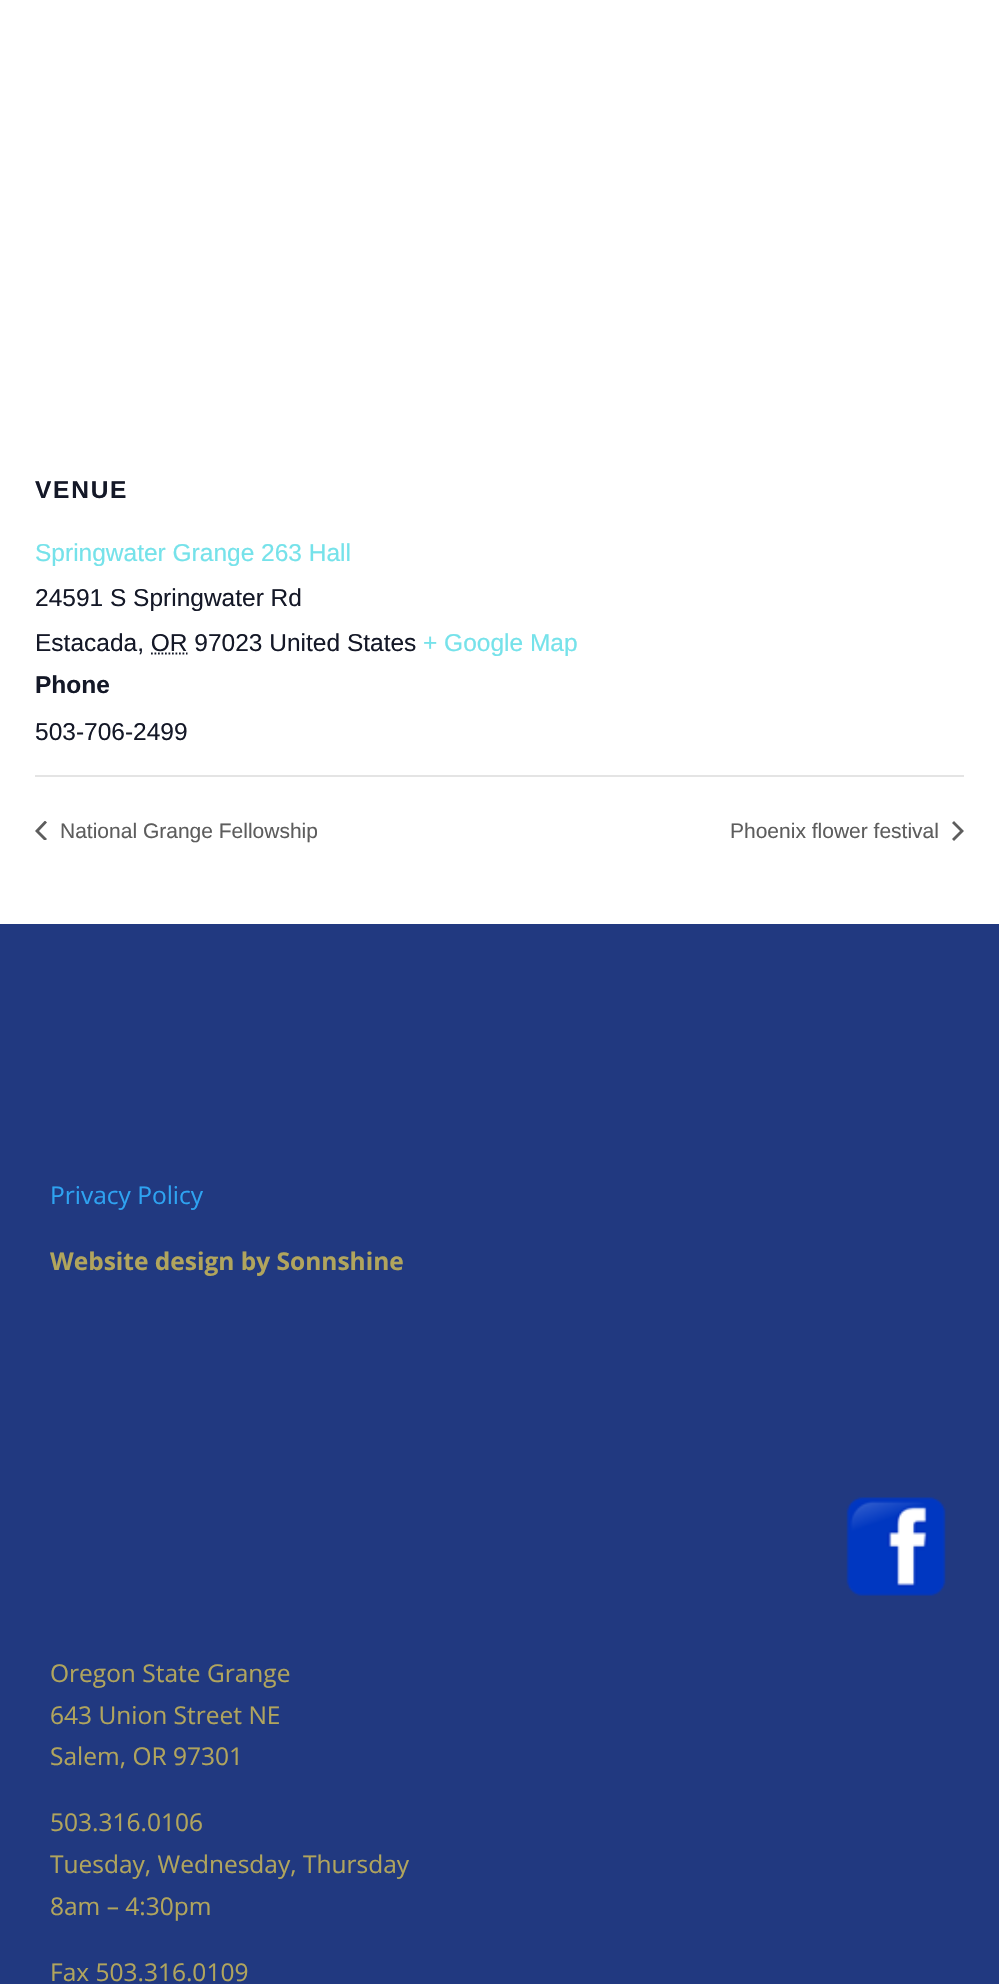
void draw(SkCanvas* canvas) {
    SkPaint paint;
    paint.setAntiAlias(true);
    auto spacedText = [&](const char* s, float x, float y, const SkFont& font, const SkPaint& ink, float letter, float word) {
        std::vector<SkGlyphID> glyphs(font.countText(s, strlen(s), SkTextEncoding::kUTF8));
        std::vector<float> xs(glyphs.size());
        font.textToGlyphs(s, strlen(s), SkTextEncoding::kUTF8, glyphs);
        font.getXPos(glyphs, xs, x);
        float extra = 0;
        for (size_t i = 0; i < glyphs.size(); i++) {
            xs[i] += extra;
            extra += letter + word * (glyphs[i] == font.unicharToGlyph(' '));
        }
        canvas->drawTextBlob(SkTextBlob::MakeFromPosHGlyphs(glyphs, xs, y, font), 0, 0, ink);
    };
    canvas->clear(0xFFFFFFFF);
    SkFont font1(fontMgr->matchFamilyStyle("Liberation Sans", SkFontStyle::Bold()), 24.5f);
    font1.setSubpixel(true);
    paint.setColor(0xFF141827);
    spacedText("VENUE", 35, 498, font1, paint, 1.75f, 0);
    SkFont font2(fontMgr->matchFamilyStyle("Liberation Sans", SkFontStyle::Normal()), 24.5f);
    font2.setSubpixel(true);
    paint.setColor(0xFF75E2EA);
    canvas->drawString("Springwater Grange 263 Hall", 35, 561, font2, paint);
    paint.setColor(0xFF141827);
    canvas->drawString("24591 S Springwater Rd", 35, 606, font2, paint);
    canvas->drawString("Estacada, OR 97023 United States", 35, 651, font2, paint);
    paint.setStyle(SkPaint::kStroke_Style);
    paint.setStrokeWidth(1.8f);
    paint.setPathEffect(SkDashPathEffect::Make({{1.75f, 1.75f}}, 0));
    canvas->drawPath(SkPathBuilder().moveTo(151, 653.5f).lineTo(187.5f, 653.5f).detach(), paint);
    paint.setPathEffect(nullptr);
    paint.setStyle(SkPaint::kFill_Style);
    paint.setColor(0xFF75E2EA);
    canvas->drawString("+ Google Map", 423, 651, font2, paint);
    paint.setColor(0xFF141827);
    canvas->drawString("Phone", 35, 693, font1, paint);
    canvas->drawString("503-706-2499", 35, 740, font2, paint);
    paint.setColor(0xFFE4E4E4);
    canvas->drawRect(SkRect::MakeXYWH(35, 775, 929, 2), paint);
    canvas->save();
    canvas->clipRect(SkRect::MakeXYWH(35, 821, 12, 19));
    paint.setColor(0xFF5D5D5D);
    canvas->drawPath(SkPathBuilder().moveTo(47, 839).lineTo(45, 841).lineTo(35, 831).lineTo(45, 820.5f).lineTo(47, 822.5f).lineTo(39, 831).close().detach(), paint);
    canvas->restore();
    SkFont font3(fontMgr->matchFamilyStyle("Liberation Sans", SkFontStyle::Normal()), 21);
    font3.setSubpixel(true);
    canvas->drawString("National Grange Fellowship", 60, 838, font3, paint);
    canvas->drawString("Phoenix flower festival", 730, 838, font3, paint);
    canvas->drawPath(SkPathBuilder().moveTo(952, 823).lineTo(954, 821).lineTo(964, 831).lineTo(954, 841).lineTo(952, 839).lineTo(960, 831).close().detach(), paint);
    paint.setColor(0xFF213980);
    canvas->drawRect(SkRect::MakeXYWH(0, 924, 999, 1060), paint);
    SkFont font4(fontMgr->matchFamilyStyle("Open Sans", SkFontStyle::Normal()), 24.5f);
    font4.setSubpixel(true);
    paint.setColor(0xFF2EA3F2);
    canvas->drawString("Privacy Policy", 50, 1204, font4, paint);
    SkFont font5(fontMgr->matchFamilyStyle("Open Sans", SkFontStyle::Bold()), 24.5f);
    font5.setSubpixel(true);
    paint.setColor(0xFFB1A55D);
    canvas->drawString("Website design by Sonnshine", 50, 1270, font5, paint);
    canvas->drawImageRect(SkImages::DeferredFromEncodedData(SkData::MakeFromFileName("img1.png")), SkRect::MakeXYWH(846, 1497, 100, 99), SkSamplingOptions());
    canvas->drawString("Oregon State Grange", 50, 1682, font4, paint);
    canvas->drawString("643 Union Street NE", 50, 1724, font4, paint);
    canvas->drawString("Salem, OR 97301", 50, 1765, font4, paint);
    canvas->drawString("503.316.0106", 50, 1831, font4, paint);
    canvas->drawString("Tuesday, Wednesday, Thursday", 50, 1873, font4, paint);
    canvas->drawString("8am – 4:30pm", 50, 1915, font4, paint);
    canvas->drawString("Fax 503.316.0109", 50, 1981, font4, paint);
}
